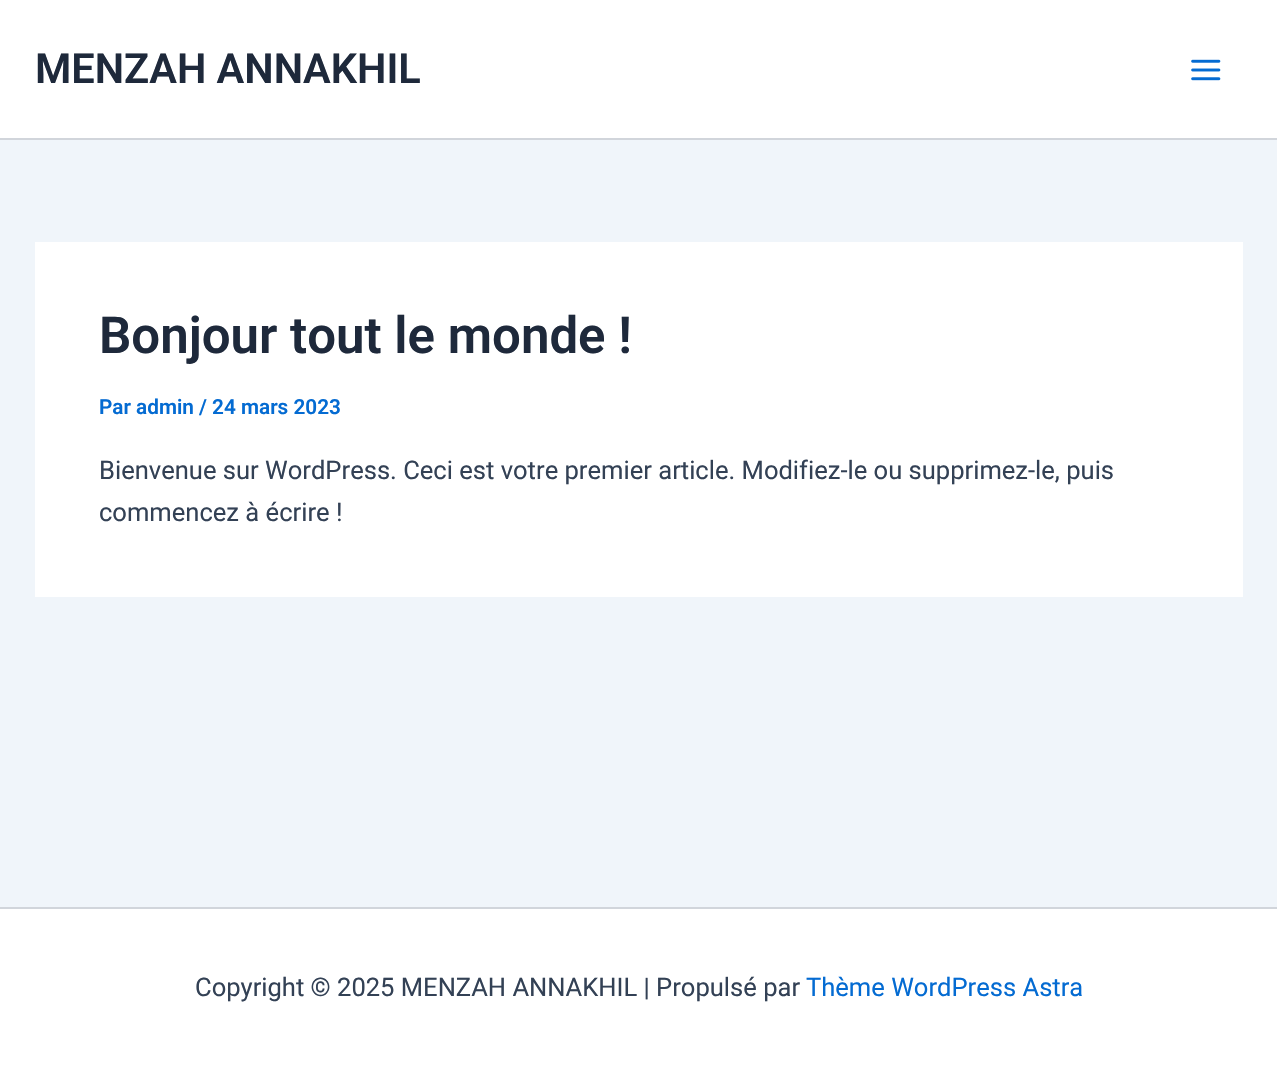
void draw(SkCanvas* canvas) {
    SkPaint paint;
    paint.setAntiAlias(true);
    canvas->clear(0xFFF0F5FA);
    paint.setColor(0xFFFFFFFF);
    canvas->drawRect(SkRect::MakeXYWH(0, 0, 1277, 138), paint);
    paint.setColor(0xFFD1D5DB);
    canvas->drawRect(SkRect::MakeXYWH(0, 138, 1277, 2), paint);
    SkFont font1(fontMgr->matchFamilyStyle("Roboto", SkFontStyle(600, SkFontStyle::kNormal_Width, SkFontStyle::kUpright_Slant)), 41.5f);
    font1.setSubpixel(true);
    paint.setColor(0xFF1E293B);
    canvas->drawString("MENZAH ANNAKHIL", 35, 83, font1, paint);
    canvas->drawImageRect(SkImages::DeferredFromEncodedData(SkData::MakeFromFileName("img1.png")), SkRect::MakeXYWH(1191, 59, 30, 22), SkSamplingOptions());
    paint.setColor(0xFFFFFFFF);
    canvas->drawRect(SkRect::MakeXYWH(35, 242, 1208, 355), paint);
    SkFont font2(fontMgr->matchFamilyStyle("Roboto", SkFontStyle(600, SkFontStyle::kNormal_Width, SkFontStyle::kUpright_Slant)), 51);
    font2.setSubpixel(true);
    paint.setColor(0xFF1E293B);
    canvas->drawString("Bonjour tout le monde !", 99, 353, font2, paint);
    SkFont font3(fontMgr->matchFamilyStyle("Roboto", SkFontStyle(600, SkFontStyle::kNormal_Width, SkFontStyle::kUpright_Slant)), 20.75f);
    font3.setSubpixel(true);
    paint.setColor(0xFF046BD2);
    canvas->drawString("Par admin / 24 mars 2023", 99, 414, font3, paint);
    SkFont font4(fontMgr->matchFamilyStyle("Roboto", SkFontStyle::Normal()), 25.55f);
    font4.setSubpixel(true);
    paint.setColor(0xFF334155);
    canvas->drawString("Bienvenue sur WordPress. Ceci est votre premier article. Modifiez-le ou supprimez-le, puis", 99, 479, font4, paint);
    canvas->drawString("commencez à écrire !", 99, 521, font4, paint);
    paint.setColor(0xFFFFFFFF);
    canvas->drawRect(SkRect::MakeXYWH(0, 909, 1277, 173), paint);
    paint.setColor(0xFFD1D5DB);
    canvas->drawRect(SkRect::MakeXYWH(0, 907, 1277, 2), paint);
    paint.setColor(0xFF334155);
    canvas->drawString("Copyright © 2025 MENZAH ANNAKHIL | Propulsé par", 195, 996, font4, paint);
    paint.setColor(0xFF046BD2);
    canvas->drawString("Thème WordPress Astra", 806, 996, font4, paint);
}
